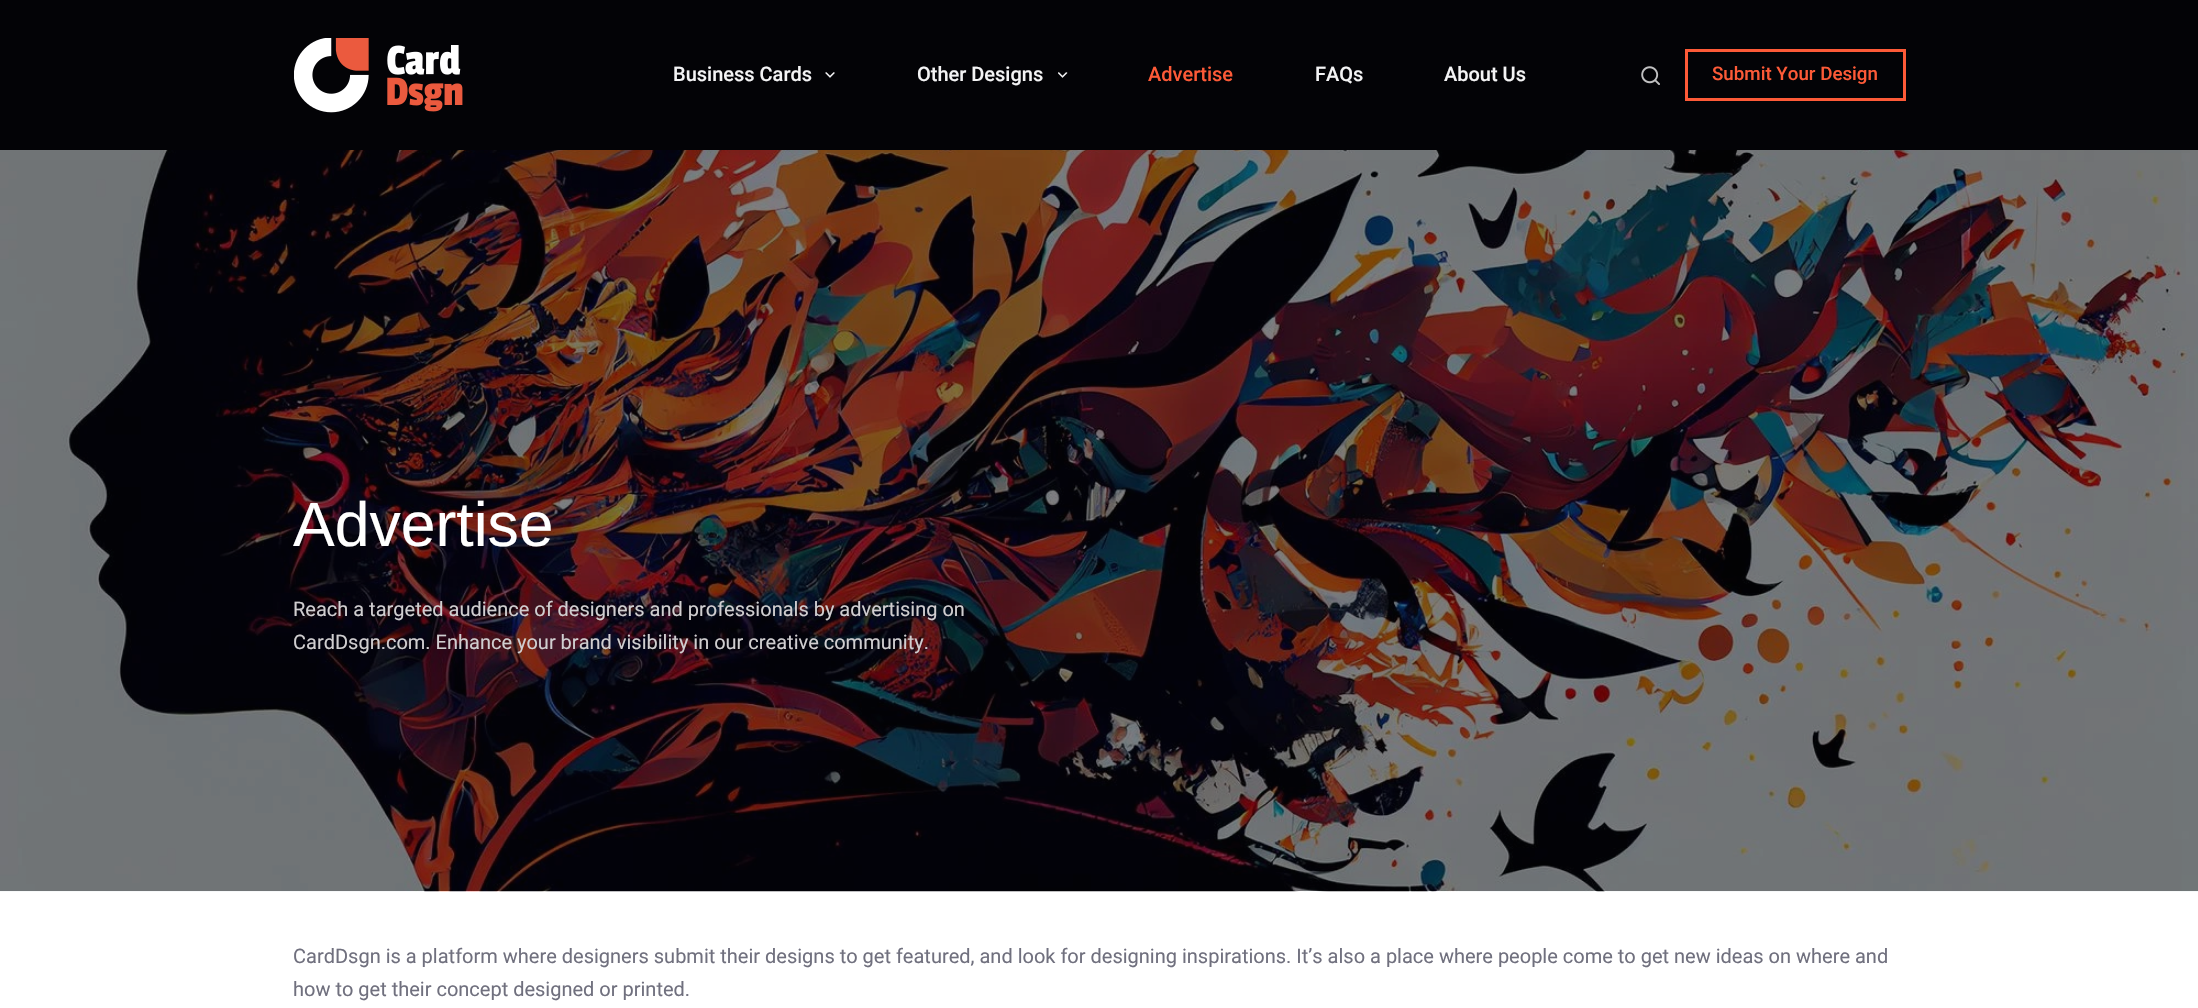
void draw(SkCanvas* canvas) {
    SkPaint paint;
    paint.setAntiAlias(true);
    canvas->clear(0xFFFFFFFF);
    paint.setColor(0xFF030306);
    canvas->drawRect(SkRect::MakeXYWH(0, 0, 2198, 150), paint);
    canvas->drawImageRect(SkImages::DeferredFromEncodedData(SkData::MakeFromFileName("img1.png")), SkRect::MakeXYWH(294, 38, 169, 75), SkSamplingOptions());
    SkFont font1(fontMgr->matchFamilyStyle("Roboto", SkFontStyle(500, SkFontStyle::kNormal_Width, SkFontStyle::kUpright_Slant)), 20);
    font1.setSubpixel(true);
    paint.setColor(0xFFF4F4F5);
    canvas->drawString("Business Cards", 673, 81, font1, paint);
    canvas->drawImageRect(SkImages::DeferredFromEncodedData(SkData::MakeFromFileName("img2.png")), SkRect::MakeXYWH(825, 72, 10, 6), SkSamplingOptions());
    canvas->drawString("Other Designs", 917, 81, font1, paint);
    canvas->drawImageRect(SkImages::DeferredFromEncodedData(SkData::MakeFromFileName("img3.png")), SkRect::MakeXYWH(1058, 72, 10, 6), SkSamplingOptions());
    paint.setColor(0xFFFD5A37);
    canvas->drawString("Advertise", 1148, 81, font1, paint);
    paint.setColor(0xFFF4F4F5);
    canvas->drawString("FAQs", 1315, 81, font1, paint);
    canvas->drawString("About Us", 1444, 81, font1, paint);
    canvas->drawImageRect(SkImages::DeferredFromEncodedData(SkData::MakeFromFileName("img4.png")), SkRect::MakeXYWH(1641, 66, 19, 19), SkSamplingOptions());
    paint.setStyle(SkPaint::kStroke_Style);
    paint.setStrokeWidth(3);
    paint.setColor(0xFFFD5A37);
    canvas->drawRect(SkRect::MakeXYWH(1686.5f, 50.5f, 218, 49), paint);
    SkFont font2(fontMgr->matchFamilyStyle("Roboto", SkFontStyle(500, SkFontStyle::kNormal_Width, SkFontStyle::kUpright_Slant)), 18.75f);
    font2.setSubpixel(true);
    paint.setStyle(SkPaint::kFill_Style);
    canvas->drawString("Submit Your Design", 1712, 80, font2, paint);
    canvas->drawImageRect(SkImages::DeferredFromEncodedData(SkData::MakeFromFileName("img5.png")), SkRect::MakeXYWH(0, 150, 2198, 742), SkSamplingOptions());
    SkFont font3(fontMgr->matchFamilyStyle("Liberation Sans", SkFontStyle::Normal()), 62.5f);
    font3.setSubpixel(true);
    paint.setColor(0xFFFFFFFF);
    canvas->drawString("Advertise", 293, 546, font3, paint);
    SkFont font4(fontMgr->matchFamilyStyle("Roboto", SkFontStyle::Normal()), 20);
    font4.setSubpixel(true);
    paint.setColor(0xFFD0CED0);
    canvas->drawString("Reach a targeted audience of designers and professionals by advertising on", 293, 616, font4, paint);
    canvas->drawString("CardDsgn.com. Enhance your brand visibility in our creative community.", 293, 649, font4, paint);
    paint.setColor(0xFF70707E);
    canvas->drawString("CardDsgn is a platform where designers submit their designs to get featured, and look for designing inspirations. It’s also a place where people come to get new ideas on where and", 293, 963, font4, paint);
    canvas->drawString("how to get their concept designed or printed.", 293, 996, font4, paint);
}
